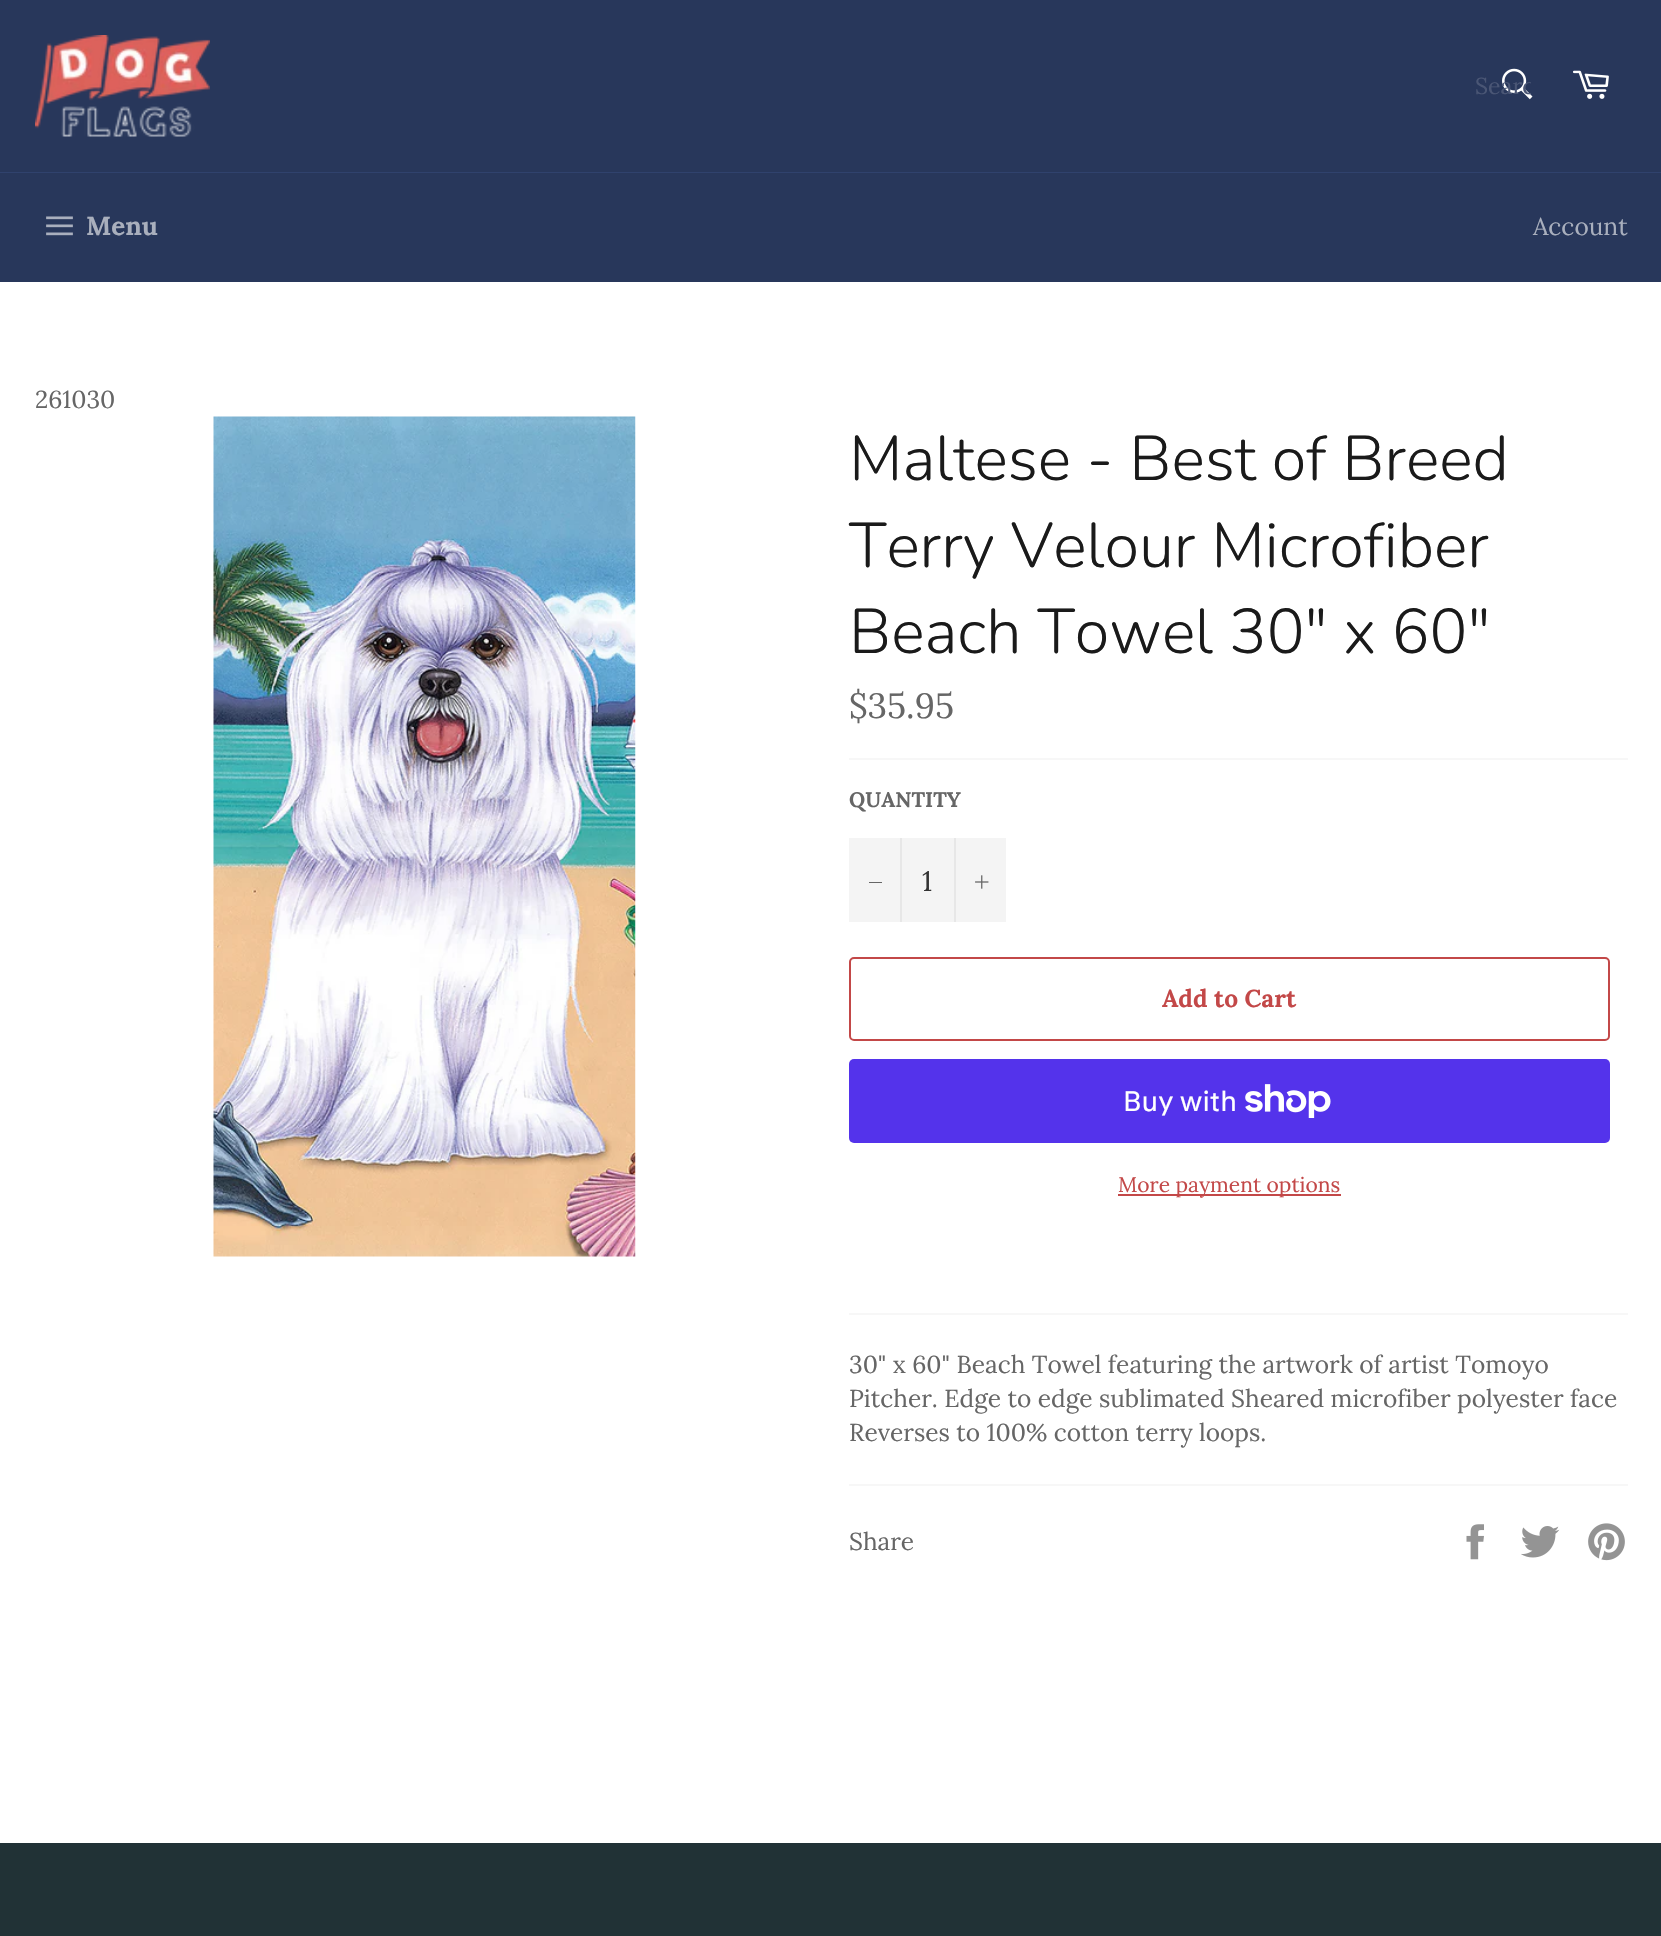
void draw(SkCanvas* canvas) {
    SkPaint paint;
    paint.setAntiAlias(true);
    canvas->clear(0xFF28375B);
    canvas->drawImageRect(SkImages::DeferredFromEncodedData(SkData::MakeFromFileName("img1.png")), SkRect::MakeXYWH(35, 35, 175, 102), SkSamplingOptions());
    canvas->drawImageRect(SkImages::DeferredFromEncodedData(SkData::MakeFromFileName("img2.png")), SkRect::MakeXYWH(1502, 68, 31, 32), SkSamplingOptions());
    canvas->save();
    canvas->clipRect(SkRect::MakeXYWH(1475, 72, 56, 30));
    SkFont font1(fontMgr->matchFamilyStyle("Lora", SkFontStyle::Normal()), 23);
    font1.setSubpixel(true);
    paint.setColor(0xFF4A5675);
    canvas->drawString("Searc", 1475, 94, font1, paint);
    canvas->restore();
    canvas->drawImageRect(SkImages::DeferredFromEncodedData(SkData::MakeFromFileName("img3.png")), SkRect::MakeXYWH(1573, 70, 36, 29), SkSamplingOptions());
    paint.setColor(0xFF30426D);
    canvas->drawRect(SkRect::MakeXYWH(0, 172, 1661, 1), paint);
    canvas->drawImageRect(SkImages::DeferredFromEncodedData(SkData::MakeFromFileName("img4.png")), SkRect::MakeXYWH(46, 216, 27, 20), SkSamplingOptions());
    SkFont font2(fontMgr->matchFamilyStyle("Lora", SkFontStyle::Bold()), 26);
    font2.setSubpixel(true);
    paint.setColor(0xFFA9AFBD);
    canvas->drawString("Menu", 86, 235, font2, paint);
    SkFont font3(fontMgr->matchFamilyStyle("Lora", SkFontStyle::Normal()), 24.5f);
    font3.setSubpixel(true);
    canvas->drawString("Account", 1533, 235, font3, paint);
    paint.setColor(0xFFFFFFFF);
    canvas->drawRect(SkRect::MakeXYWH(0, 282, 1661, 1561), paint);
    paint.setColor(0xFF666666);
    canvas->drawString("261030", 35, 408, font3, paint);
    canvas->drawImageRect(SkImages::DeferredFromEncodedData(SkData::MakeFromFileName("img5.png")), SkRect::MakeXYWH(213, 416, 423, 841), SkSamplingOptions());
    SkFont font4(fontMgr->matchFamilyStyle("Nunito", SkFontStyle(300, SkFontStyle::kNormal_Width, SkFontStyle::kUpright_Slant)), 63);
    font4.setSubpixel(true);
    paint.setColor(0xFF1A1A1A);
    canvas->drawString("Maltese - Best of Breed", 849, 480, font4, paint);
    canvas->drawString("Terry Velour Microfiber", 849, 567, font4, paint);
    canvas->drawString("Beach Towel 30\" x 60\"", 849, 653, font4, paint);
    SkFont font5(fontMgr->matchFamilyStyle("Lora", SkFontStyle::Normal()), 35);
    font5.setSubpixel(true);
    paint.setColor(0xFF666666);
    canvas->drawString("$35.95", 849, 718, font5, paint);
    paint.setColor(0xFFF7F7F7);
    canvas->drawRect(SkRect::MakeXYWH(849, 758, 779, 2), paint);
    SkFont font6(fontMgr->matchFamilyStyle("Lora", SkFontStyle::Bold()), 21);
    font6.setSubpixel(true);
    paint.setColor(0xFF666666);
    canvas->drawString("QUANTITY", 849, 807, font6, paint);
    paint.setColor(0xFFF4F4F4);
    canvas->drawRect(SkRect::MakeXYWH(849, 838, 157, 84), paint);
    paint.setColor(0xFFE7E7E7);
    canvas->drawRect(SkRect::MakeXYWH(900, 838, 2, 84), paint);
    paint.setColor(0xFF666666);
    canvas->drawRect(SkRect::MakeXYWH(869, 882, 13, 1), paint);
    SkFont font7(fontMgr->matchFamilyStyle("Lora", SkFontStyle::Normal()), 28);
    font7.setSubpixel(true);
    paint.setColor(0xFF333333);
    canvas->drawString("1", 922, 891, font7, paint);
    paint.setColor(0xFFE7E7E7);
    canvas->drawRect(SkRect::MakeXYWH(954, 838, 2, 84), paint);
    canvas->drawImageRect(SkImages::DeferredFromEncodedData(SkData::MakeFromFileName("img6.png")), SkRect::MakeXYWH(975, 875, 14, 14), SkSamplingOptions());
    paint.setStyle(SkPaint::kStroke_Style);
    paint.setStrokeWidth(2);
    paint.setColor(0xFFC34848);
    canvas->drawRoundRect(SkRect::MakeXYWH(850, 958, 759, 82), 4, 4, paint);
    SkFont font8(fontMgr->matchFamilyStyle("Lora", SkFontStyle::Bold()), 24.5f);
    font8.setSubpixel(true);
    paint.setStyle(SkPaint::kFill_Style);
    canvas->drawString("Add to Cart", 1162, 1007, font8, paint);
    paint.setColor(0xFF5433EB);
    canvas->drawRoundRect(SkRect::MakeXYWH(849, 1059, 761, 84), 5, 5, paint);
    SkFont font9(fontMgr->matchFamilyStyle("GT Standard", SkFontStyle::Normal()), 28);
    font9.setSubpixel(true);
    paint.setColor(0xFFFFFFFF);
    canvas->drawString("Buy with", 1123, 1111, font9, paint);
    canvas->drawImageRect(SkImages::DeferredFromEncodedData(SkData::MakeFromFileName("img7.png")), SkRect::MakeXYWH(1245, 1084, 86, 34), SkSamplingOptions());
    paint.setColor(0xFFC34848);
    canvas->drawRect(SkRect::MakeXYWH(1118, 1194, 223, 2), paint);
    SkFont font10(fontMgr->matchFamilyStyle("Lora", SkFontStyle::Normal()), 21);
    font10.setSubpixel(true);
    canvas->drawString("More payment options", 1118, 1192, font10, paint);
    paint.setColor(0xFFF7F7F7);
    canvas->drawRect(SkRect::MakeXYWH(849, 1313, 779, 2), paint);
    paint.setColor(0xFF666666);
    canvas->drawString("30\" x 60\" Beach Towel featuring the artwork of artist Tomoyo", 849, 1373, font3, paint);
    canvas->drawString("Pitcher. Edge to edge sublimated Sheared microfiber polyester face", 849, 1407, font3, paint);
    canvas->drawString("Reverses to 100% cotton terry loops.", 849, 1441, font3, paint);
    paint.setColor(0xFFF7F7F7);
    canvas->drawRect(SkRect::MakeXYWH(849, 1484, 779, 2), paint);
    paint.setColor(0xFF666666);
    canvas->drawString("Share", 849, 1550, font3, paint);
    canvas->drawImageRect(SkImages::DeferredFromEncodedData(SkData::MakeFromFileName("img8.png")), SkRect::MakeXYWH(1466, 1524, 18, 36), SkSamplingOptions());
    canvas->drawImageRect(SkImages::DeferredFromEncodedData(SkData::MakeFromFileName("img9.png")), SkRect::MakeXYWH(1521, 1526, 39, 32), SkSamplingOptions());
    canvas->drawImageRect(SkImages::DeferredFromEncodedData(SkData::MakeFromFileName("img10.png")), SkRect::MakeXYWH(1588, 1523, 37, 38), SkSamplingOptions());
    paint.setColor(0xFF213236);
    canvas->drawRect(SkRect::MakeXYWH(0, 1843, 1661, 93), paint);
}
